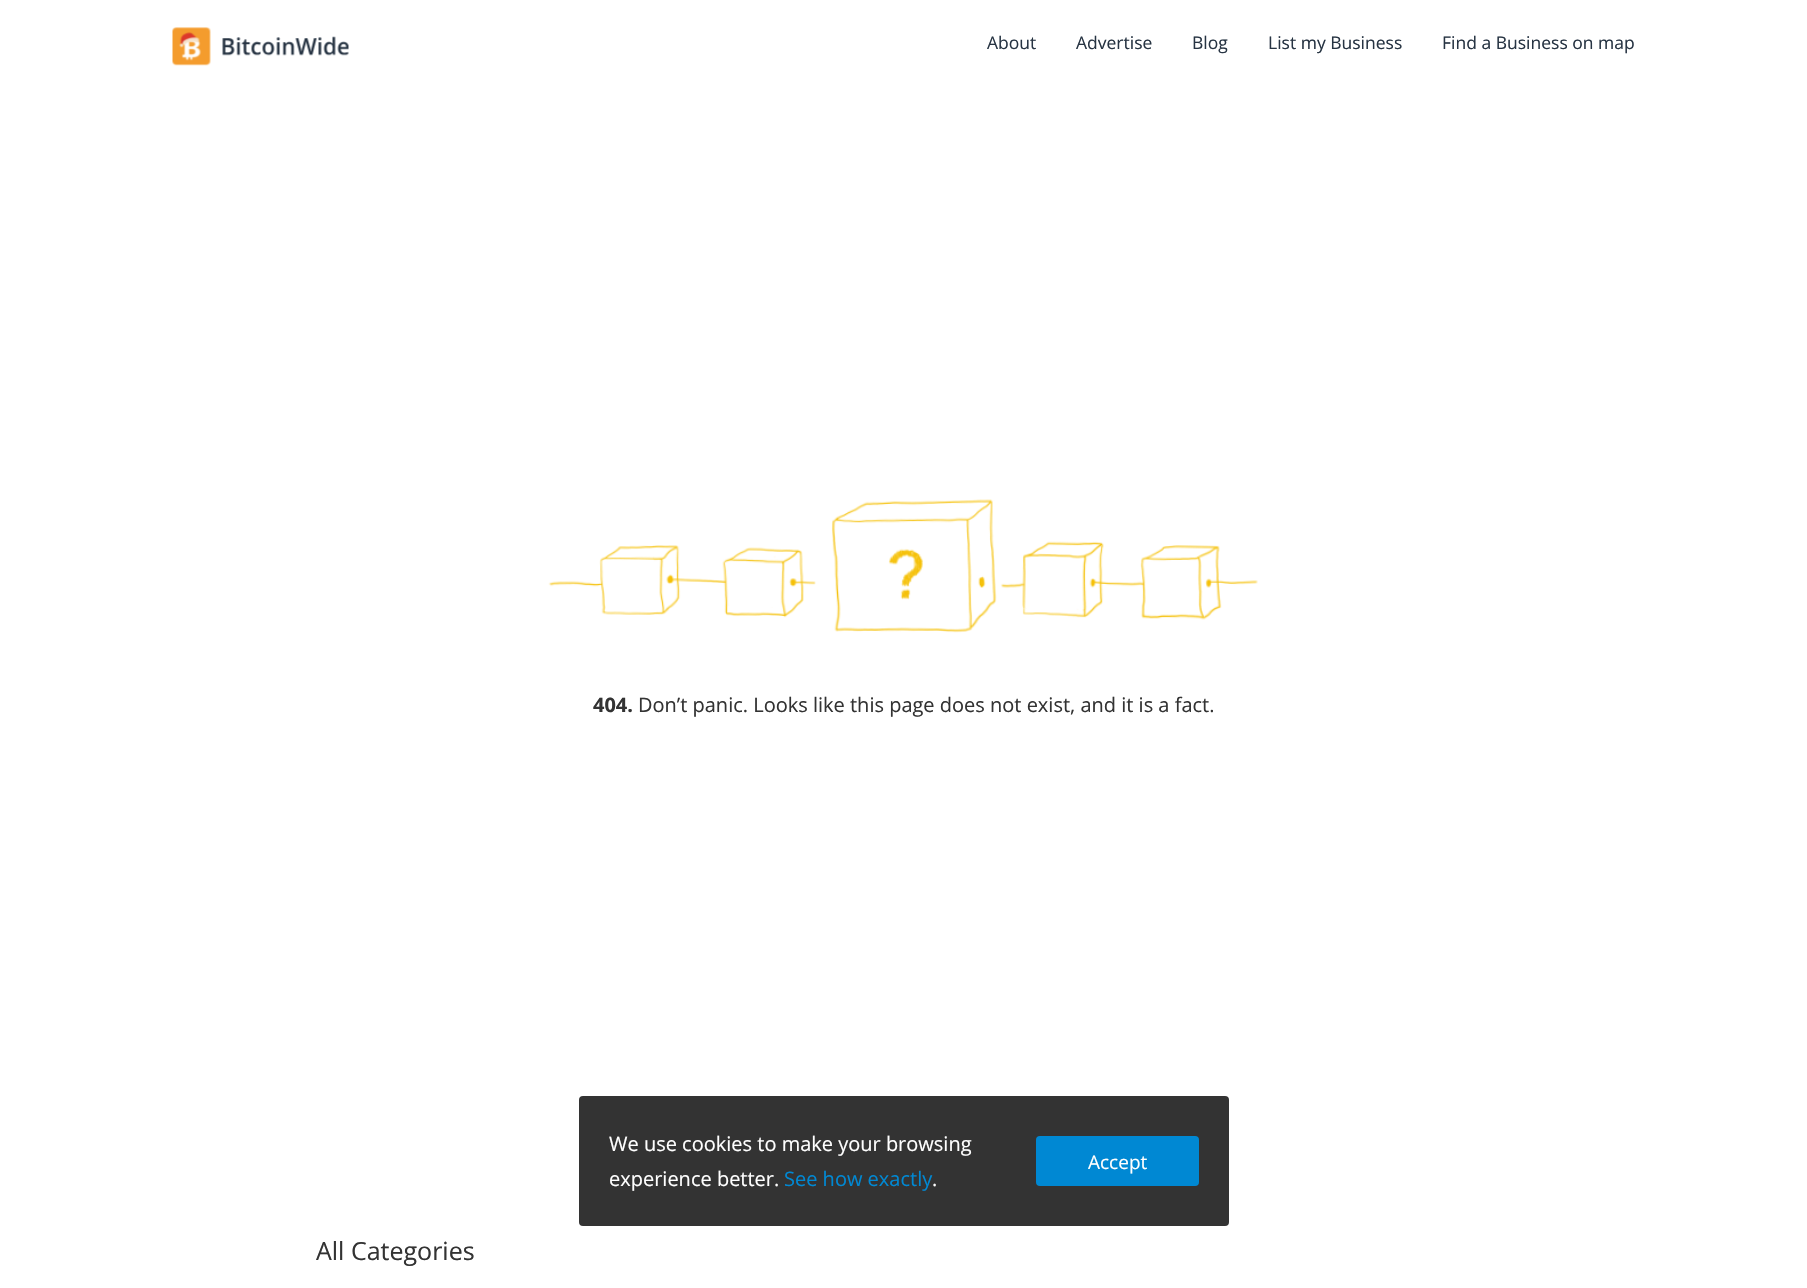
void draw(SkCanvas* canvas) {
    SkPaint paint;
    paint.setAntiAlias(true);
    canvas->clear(0xFFFFFFFF);
    canvas->drawImageRect(SkImages::DeferredFromEncodedData(SkData::MakeFromFileName("img1.png")), SkRect::MakeXYWH(172, 27, 177, 39), SkSamplingOptions());
    SkFont font1(fontMgr->matchFamilyStyle("Open Sans", SkFontStyle::Normal()), 17.5f);
    font1.setSubpixel(true);
    paint.setColor(0xFF273443);
    canvas->drawString("About", 987, 49, font1, paint);
    canvas->drawString("Advertise", 1076, 49, font1, paint);
    canvas->drawString("Blog", 1192, 49, font1, paint);
    canvas->drawString("List my Business", 1268, 49, font1, paint);
    canvas->drawString("Find a Business on map", 1442, 49, font1, paint);
    canvas->drawImageRect(SkImages::DeferredFromEncodedData(SkData::MakeFromFileName("img2.png")), SkRect::MakeXYWH(548, 499, 710, 134), SkSamplingOptions());
    SkFont font2(fontMgr->matchFamilyStyle("Open Sans", SkFontStyle::Bold()), 20);
    font2.setSubpixel(true);
    paint.setColor(0xFF333333);
    canvas->drawString("404.", 593, 712, font2, paint);
    SkFont font3(fontMgr->matchFamilyStyle("Open Sans", SkFontStyle::Normal()), 20);
    font3.setSubpixel(true);
    canvas->drawString("Don’t panic. Looks like this page does not exist, and it is a fact.", 638, 712, font3, paint);
    canvas->drawRoundRect(SkRect::MakeXYWH(579, 1096, 650, 130), 4, 4, paint);
    paint.setColor(0xFFFFFFFF);
    canvas->drawString("We use cookies to make your browsing", 609, 1151, font3, paint);
    canvas->drawString("experience better.", 609, 1186, font3, paint);
    paint.setColor(0xFF0088D3);
    canvas->drawString("See how exactly", 784, 1186, font3, paint);
    paint.setColor(0xFFFFFFFF);
    canvas->drawString(".", 932, 1186, font3, paint);
    paint.setColor(0xFF0088D3);
    canvas->drawRoundRect(SkRect::MakeXYWH(1036, 1136, 163, 50), 4, 4, paint);
    SkFont font4(fontMgr->matchFamilyStyle("Open Sans", SkFontStyle::Normal()), 19);
    font4.setSubpixel(true);
    paint.setColor(0xFFFFFFFF);
    canvas->drawString("Accept", 1088, 1169, font4, paint);
    SkFont font5(fontMgr->matchFamilyStyle("Open Sans", SkFontStyle::Normal()), 25);
    font5.setSubpixel(true);
    paint.setColor(0xFF333333);
    canvas->drawString("All Categories", 316, 1260, font5, paint);
}
